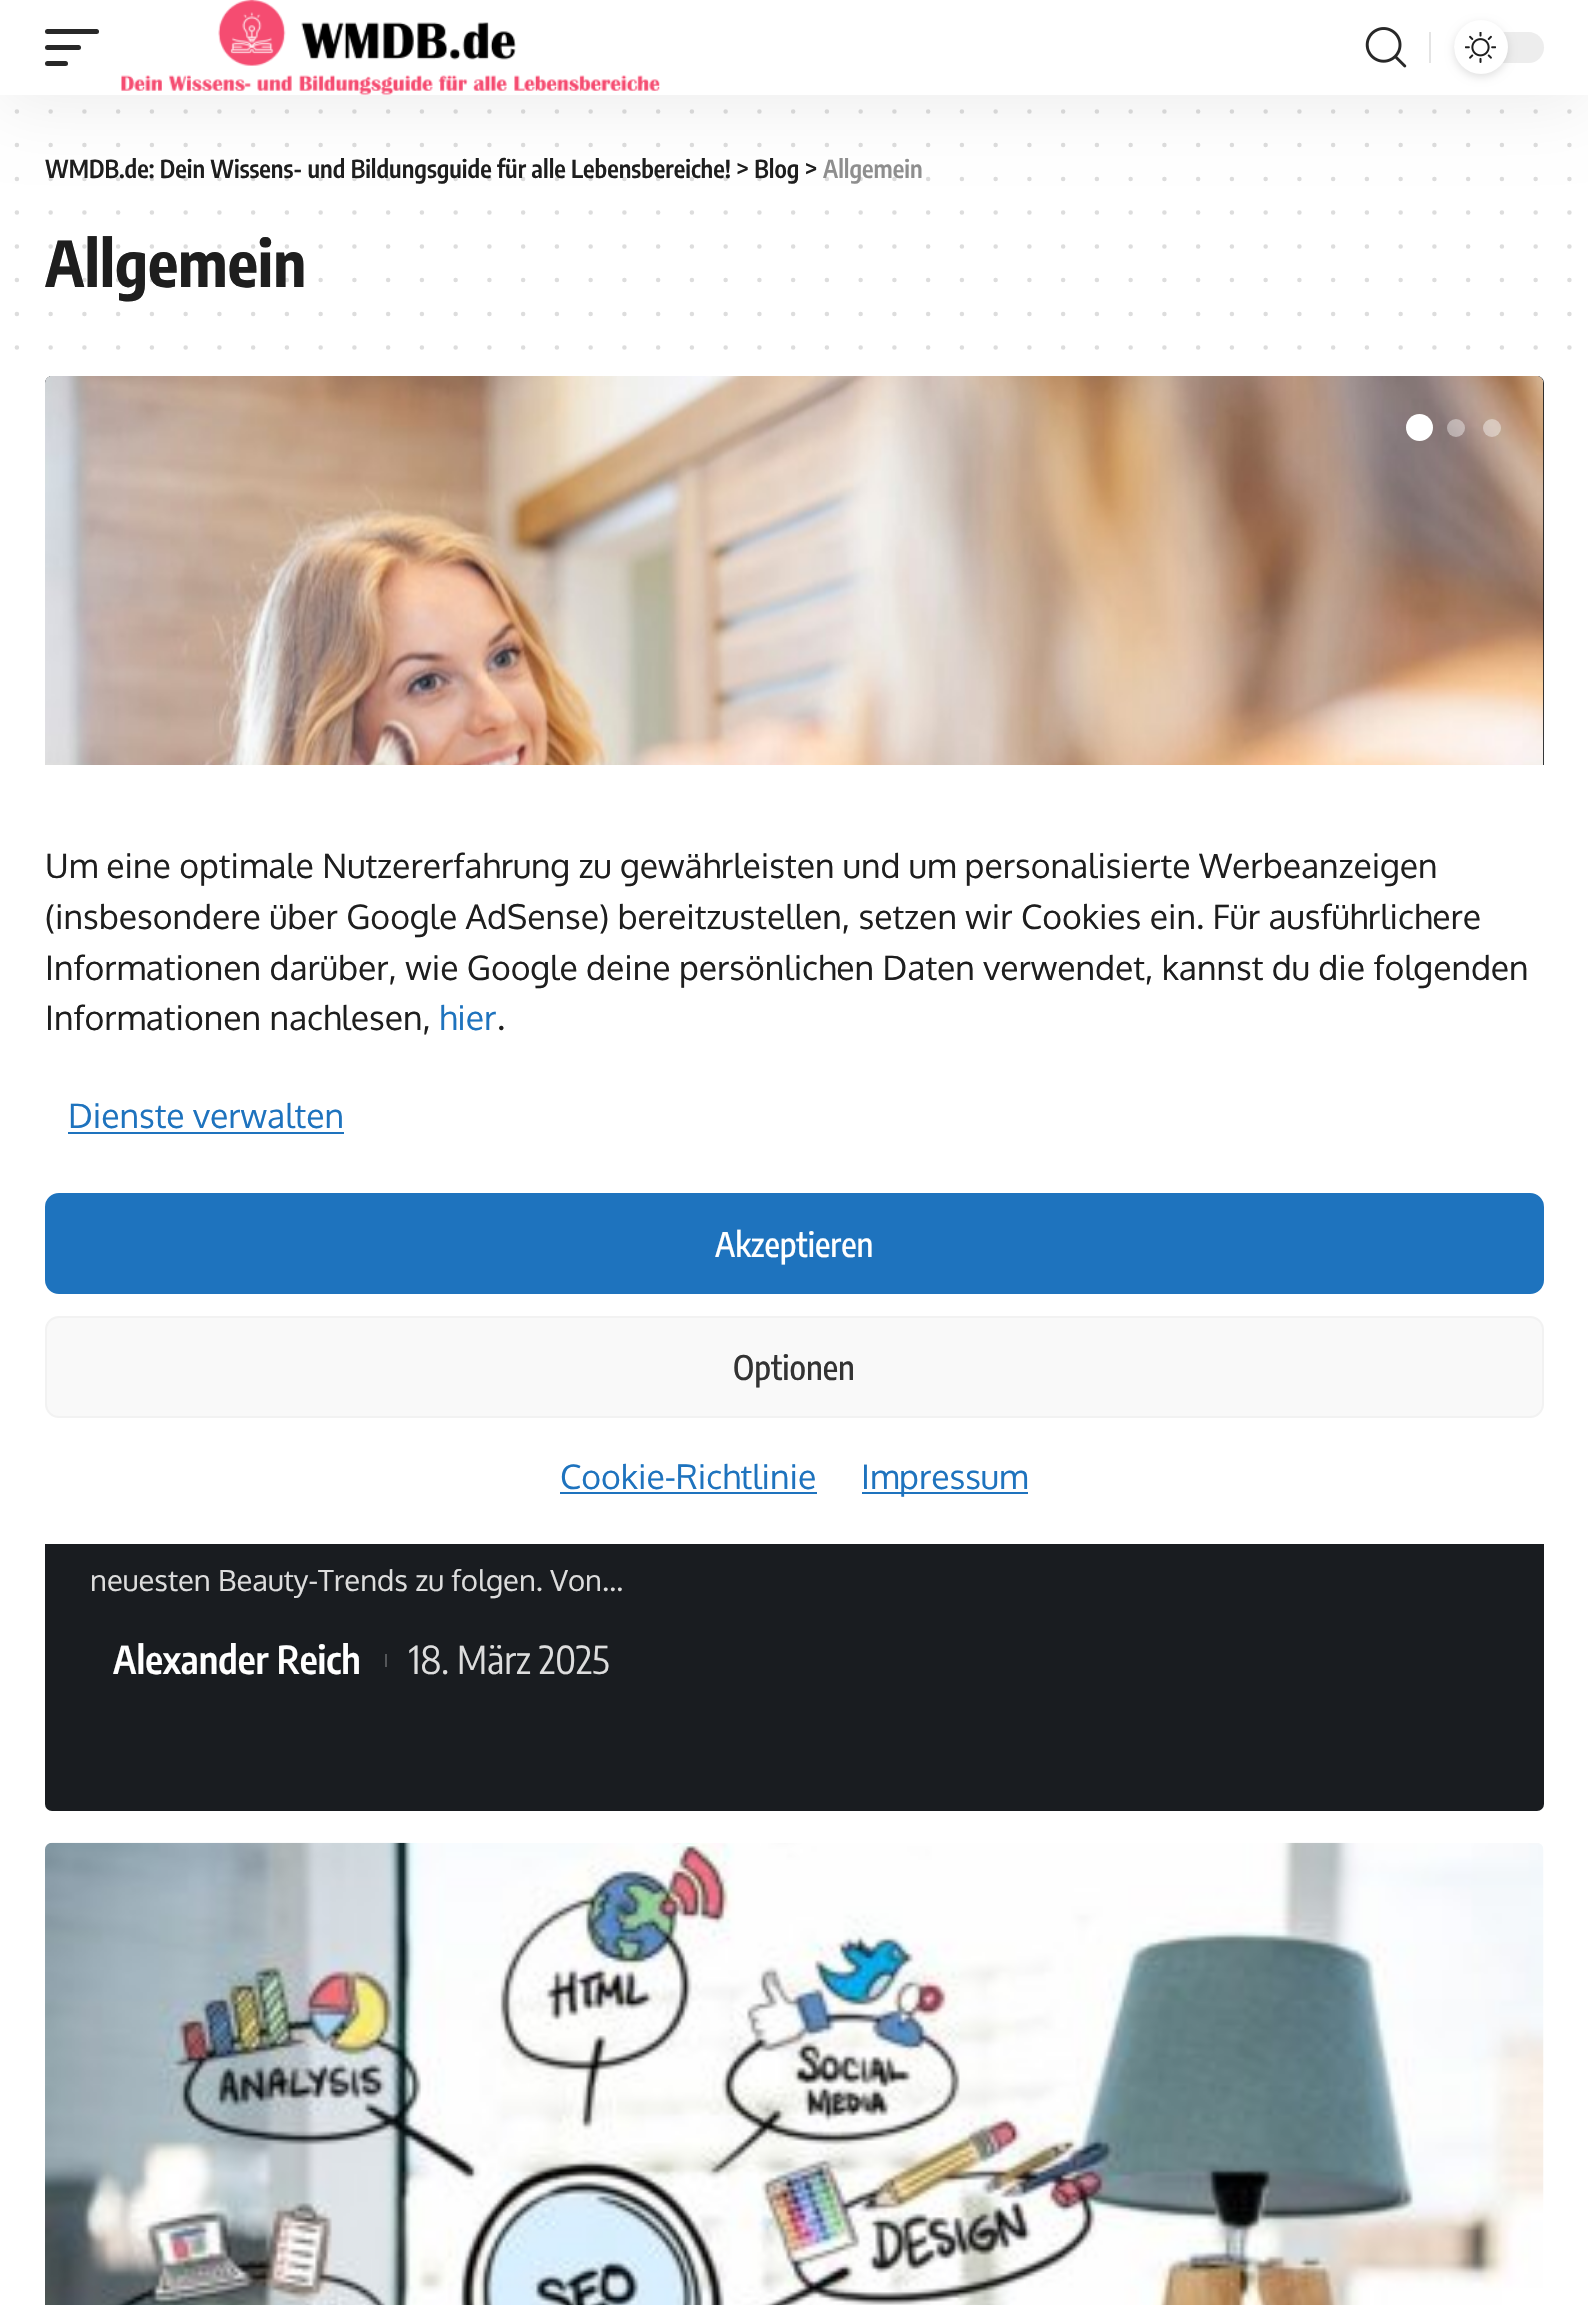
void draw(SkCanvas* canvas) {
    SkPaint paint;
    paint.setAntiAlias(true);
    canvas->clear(0xFFFFFFFF);
    paint.setStyle(SkPaint::kStroke_Style);
    paint.setStrokeWidth(4.5f);
    paint.setStrokeCap(SkPaint::kRound_Cap);
    paint.setColor(0xFFDDDDDD);
    paint.setPathEffect(SkDashPathEffect::Make({{0, 33.75f}}, 0));
    canvas->drawPath(SkPathBuilder().moveTo(16.9f, 111.4f).lineTo(1569.8f, 111.4f).detach(), paint);
    paint.setPathEffect(nullptr);
    paint.setPathEffect(SkDashPathEffect::Make({{0, 33.75f}}, 0));
    canvas->drawPath(SkPathBuilder().moveTo(16.9f, 145.1f).lineTo(1569.8f, 145.1f).detach(), paint);
    paint.setPathEffect(nullptr);
    paint.setPathEffect(SkDashPathEffect::Make({{0, 33.75f}}, 0));
    canvas->drawPath(SkPathBuilder().moveTo(16.9f, 178.9f).lineTo(1569.8f, 178.9f).detach(), paint);
    paint.setPathEffect(nullptr);
    paint.setStyle(SkPaint::kFill_Style);
    paint.setColor(0x12000000);
    paint.setMaskFilter(SkMaskFilter::MakeBlur(kNormal_SkBlurStyle, 34));
    canvas->drawRect(SkRect::MakeXYWH(0, 9, 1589, 95), paint);
    paint.setMaskFilter(nullptr);
    paint.setColor(0xFFFFFFFF);
    canvas->drawRect(SkRect::MakeXYWH(0, 0, 1588, 95), paint);
    paint.setColor(0xFF282828);
    canvas->drawRoundRect(SkRect::MakeXYWH(45, 29, 54, 5), 2.5f, 2.5f, paint);
    canvas->drawRoundRect(SkRect::MakeXYWH(45, 45, 36, 5), 2.5f, 2.5f, paint);
    canvas->drawRoundRect(SkRect::MakeXYWH(45, 61, 23, 5), 2.5f, 2.5f, paint);
    canvas->drawImageRect(SkImages::DeferredFromEncodedData(SkData::MakeFromFileName("img1.png")), SkRect::MakeXYWH(121, 0, 539, 95), SkSamplingOptions());
    canvas->drawImageRect(SkImages::DeferredFromEncodedData(SkData::MakeFromFileName("img2.png")), SkRect::MakeXYWH(1365, 27, 42, 41), SkSamplingOptions());
    paint.setColor(0xFFE4E4E4);
    canvas->drawRect(SkRect::MakeXYWH(1429, 32, 2, 31), paint);
    paint.setColor(0xFFEDEDED);
    canvas->drawRoundRect(SkRect::MakeXYWH(1454, 32, 90, 31), 15.5f, 15.5f, paint);
    paint.setColor(0x1F000000);
    paint.setMaskFilter(SkMaskFilter::MakeBlur(kNormal_SkBlurStyle, 4.5f));
    canvas->drawRoundRect(SkRect::MakeXYWH(1454, 23, 54, 54), 27, 27, paint);
    paint.setMaskFilter(nullptr);
    paint.setColor(0xFFFFFFFF);
    canvas->drawCircle(1481, 47, 27, paint);
    canvas->drawImageRect(SkImages::DeferredFromEncodedData(SkData::MakeFromFileName("img3.png")), SkRect::MakeXYWH(1465, 32, 31, 31), SkSamplingOptions());
    paint.setStyle(SkPaint::kStroke_Style);
    paint.setColor(0xFFDDDDDD);
    paint.setPathEffect(SkDashPathEffect::Make({{0, 33.75f}}, 0));
    canvas->drawPath(SkPathBuilder().moveTo(16.9f, 212.6f).lineTo(1569.8f, 212.6f).detach(), paint);
    paint.setPathEffect(nullptr);
    paint.setPathEffect(SkDashPathEffect::Make({{0, 33.75f}}, 0));
    canvas->drawPath(SkPathBuilder().moveTo(16.9f, 246.4f).lineTo(1569.8f, 246.4f).detach(), paint);
    paint.setPathEffect(nullptr);
    paint.setPathEffect(SkDashPathEffect::Make({{0, 33.75f}}, 0));
    canvas->drawPath(SkPathBuilder().moveTo(16.9f, 280.1f).lineTo(1569.8f, 280.1f).detach(), paint);
    paint.setPathEffect(nullptr);
    paint.setPathEffect(SkDashPathEffect::Make({{0, 33.75f}}, 0));
    canvas->drawPath(SkPathBuilder().moveTo(16.9f, 313.9f).lineTo(1569.8f, 313.9f).detach(), paint);
    paint.setPathEffect(nullptr);
    paint.setPathEffect(SkDashPathEffect::Make({{0, 33.75f}}, 0));
    canvas->drawPath(SkPathBuilder().moveTo(16.9f, 347.6f).lineTo(1569.8f, 347.6f).detach(), paint);
    paint.setPathEffect(nullptr);
    SkFont font1(fontMgr->matchFamilyStyle("Encode Sans Condensed", SkFontStyle(600, SkFontStyle::kNormal_Width, SkFontStyle::kUpright_Slant)), 24.75f);
    font1.setSubpixel(true);
    paint.setStyle(SkPaint::kFill_Style);
    paint.setColor(0xFF1E1E1E);
    canvas->drawString("WMDB.de: Dein Wissens- und Bildungsguide für alle Lebensbereiche! > Blog >", 45, 178, font1, paint);
    paint.setColor(0xFF8E8E8E);
    canvas->drawString("Allgemein", 823, 178, font1, paint);
    SkFont font2(fontMgr->matchFamilyStyle("Encode Sans Condensed", SkFontStyle::Bold()), 63);
    font2.setSubpixel(true);
    paint.setColor(0xFF1E1E1E);
    canvas->drawString("Allgemein", 45, 287, font2, paint);
    paint.setColor(0xFF191C20);
    canvas->drawRoundRect(SkRect::MakeXYWH(45, 376, 1499, 1435), 7, 7, paint);
    canvas->drawImageRect(SkImages::DeferredFromEncodedData(SkData::MakeFromFileName("img4.png")), SkRect::MakeXYWH(45, 376, 1499, 389), SkSamplingOptions());
    paint.setColor(0xFFFFFFFF);
    canvas->drawCircle(1419.5f, 427.5f, 13.5f, paint);
    paint.setColor(0x66FFFFFF);
    canvas->drawCircle(1456, 428, 9, paint);
    canvas->drawCircle(1492, 428, 9, paint);
    SkFont font3(fontMgr->matchFamilyStyle("Oxygen", SkFontStyle::Normal()), 29.25f);
    font3.setSubpixel(true);
    paint.setColor(0xFFDDDDDD);
    canvas->drawString("neuesten Beauty-Trends zu folgen. Von…", 90, 1591, font3, paint);
    SkFont font4(fontMgr->matchFamilyStyle("Encode Sans Condensed", SkFontStyle(600, SkFontStyle::kNormal_Width, SkFontStyle::kUpright_Slant)), 38.25f);
    font4.setSubpixel(true);
    paint.setColor(0xFFFFFFFF);
    canvas->drawString("Alexander Reich", 113, 1674, font4, paint);
    paint.setColor(0xFF545659);
    canvas->drawRect(SkRect::MakeXYWH(385, 1654, 2, 13), paint);
    SkFont font5(fontMgr->matchFamilyStyle("Encode Sans Condensed", SkFontStyle::Normal()), 38.25f);
    font5.setSubpixel(true);
    paint.setColor(0xFFDDDDDD);
    canvas->drawString("18. März 2025", 409, 1674, font5, paint);
    canvas->drawImageRect(SkImages::DeferredFromEncodedData(SkData::MakeFromFileName("img5.png")), SkRect::MakeXYWH(45, 1842, 1499, 463), SkSamplingOptions());
    paint.setColor(0xFFFFFFFF);
    canvas->drawRoundRect(SkRect::MakeXYWH(0, 765, 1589, 779), 27, 27, paint);
    SkFont font6(fontMgr->matchFamilyStyle("Oxygen", SkFontStyle::Normal()), 33.75f);
    font6.setSubpixel(true);
    paint.setColor(0xFF1E1E1E);
    canvas->drawString("Um eine optimale Nutzererfahrung zu gewährleisten und um personalisierte Werbeanzeigen", 45, 878, font6, paint);
    canvas->drawString("(insbesondere über Google AdSense) bereitzustellen, setzen wir Cookies ein. Für ausführlichere", 45, 929, font6, paint);
    canvas->drawString("Informationen darüber, wie Google deine persönlichen Daten verwendet, kannst du die folgenden", 45, 980, font6, paint);
    canvas->drawString("Informationen nachlesen,", 45, 1030, font6, paint);
    paint.setColor(0xFF1E73BE);
    canvas->drawString("hier", 439, 1030, font6, paint);
    paint.setColor(0xFF1E1E1E);
    canvas->drawString(".", 497, 1030, font6, paint);
    paint.setColor(0xFF1E73BE);
    canvas->drawString("Dienste verwalten", 68, 1128, font6, paint);
    canvas->drawRect(SkRect::MakeXYWH(68, 1132, 276, 2), paint);
    canvas->drawRoundRect(SkRect::MakeXYWH(46, 1194, 1497, 99), 13, 13, paint);
    paint.setStyle(SkPaint::kStroke_Style);
    paint.setStrokeWidth(2);
    paint.setStrokeCap(SkPaint::kButt_Cap);
    canvas->drawRoundRect(SkRect::MakeXYWH(46, 1194, 1497, 99), 13, 13, paint);
    SkFont font7(fontMgr->matchFamilyStyle("Encode Sans Condensed", SkFontStyle(500, SkFontStyle::kNormal_Width, SkFontStyle::kUpright_Slant)), 33.75f);
    font7.setSubpixel(true);
    paint.setStyle(SkPaint::kFill_Style);
    paint.setColor(0xFFFFFFFF);
    canvas->drawString("Akzeptieren", 715, 1257, font7, paint);
    paint.setColor(0xFFF9F9F9);
    canvas->drawRoundRect(SkRect::MakeXYWH(46, 1317, 1497, 100), 13, 13, paint);
    paint.setStyle(SkPaint::kStroke_Style);
    paint.setColor(0xFFF2F2F2);
    canvas->drawRoundRect(SkRect::MakeXYWH(46, 1317, 1497, 100), 13, 13, paint);
    paint.setStyle(SkPaint::kFill_Style);
    paint.setColor(0xFF333333);
    canvas->drawString("Optionen", 733, 1380, font7, paint);
    paint.setColor(0xFF1E73BE);
    canvas->drawString("Cookie-Richtlinie", 560, 1489, font6, paint);
    canvas->drawRect(SkRect::MakeXYWH(560, 1492, 257, 2), paint);
    canvas->drawRect(SkRect::MakeXYWH(862, 1492, 166, 2), paint);
    canvas->drawString("Impressum", 861, 1489, font6, paint);
}
